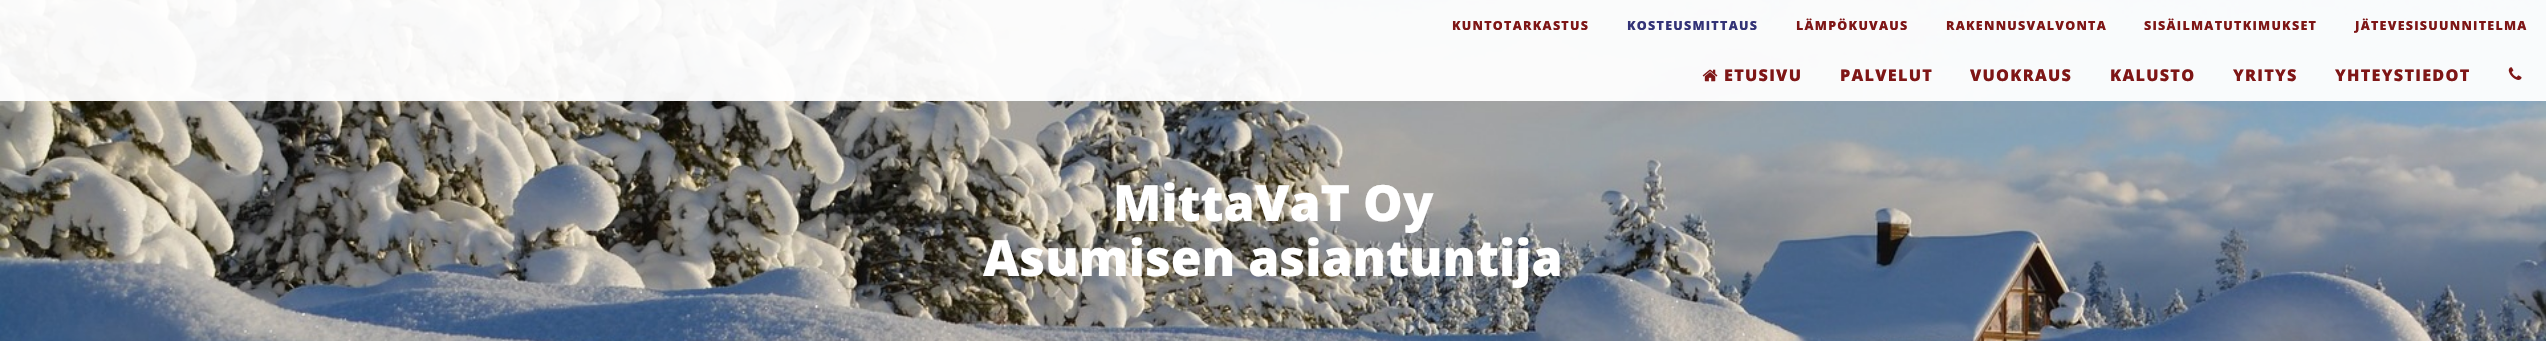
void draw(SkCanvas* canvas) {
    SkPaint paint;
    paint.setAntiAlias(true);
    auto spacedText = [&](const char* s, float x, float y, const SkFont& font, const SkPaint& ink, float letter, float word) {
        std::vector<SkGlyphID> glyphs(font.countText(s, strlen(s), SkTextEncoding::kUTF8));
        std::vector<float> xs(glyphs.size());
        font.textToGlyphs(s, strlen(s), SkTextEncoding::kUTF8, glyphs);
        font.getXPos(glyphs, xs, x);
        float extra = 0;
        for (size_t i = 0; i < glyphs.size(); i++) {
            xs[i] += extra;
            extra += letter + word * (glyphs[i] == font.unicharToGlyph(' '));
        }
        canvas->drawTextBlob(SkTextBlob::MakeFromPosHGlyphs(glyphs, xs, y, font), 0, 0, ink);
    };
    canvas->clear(0xFFFFFFFF);
    canvas->drawImageRect(SkImages::DeferredFromEncodedData(SkData::MakeFromFileName("img3.png")), SkRect::MakeXYWH(0, 0, 2546, 341), SkSamplingOptions());
    paint.setColor(0xF2FFFFFF);
    canvas->drawRect(SkRect::MakeXYWH(0, 0, 2546, 101), paint);
    SkFont font1(fontMgr->matchFamilyStyle("Open Sans", SkFontStyle(800, SkFontStyle::kNormal_Width, SkFontStyle::kUpright_Slant)), 12.5f);
    font1.setSubpixel(true);
    paint.setColor(0xFF7E1616);
    spacedText("KUNTOTARKASTUS", 1452, 30, font1, paint, 1.25f, 0);
    paint.setColor(0xFF333377);
    spacedText("KOSTEUSMITTAUS", 1627, 30, font1, paint, 1.25f, 0);
    paint.setColor(0xFF7E1616);
    spacedText("LÄMPÖKUVAUS", 1796, 30, font1, paint, 1.25f, 0);
    spacedText("RAKENNUSVALVONTA", 1946, 30, font1, paint, 1.25f, 0);
    spacedText("SISÄILMATUTKIMUKSET", 2144, 30, font1, paint, 1.25f, 0);
    spacedText("JÄTEVESISUUNNITELMA", 2355, 30, font1, paint, 1.25f, 0);
    canvas->drawImageRect(SkImages::DeferredFromEncodedData(SkData::MakeFromFileName("img1.png")), SkRect::MakeXYWH(1702, 69, 16, 13), SkSamplingOptions());
    SkFont font2(fontMgr->matchFamilyStyle("Open Sans", SkFontStyle(800, SkFontStyle::kNormal_Width, SkFontStyle::kUpright_Slant)), 16.25f);
    font2.setSubpixel(true);
    spacedText("ETUSIVU", 1724, 81, font2, paint, 1.25f, 0);
    spacedText("PALVELUT", 1840, 81, font2, paint, 1.25f, 0);
    spacedText("VUOKRAUS", 1970, 81, font2, paint, 1.25f, 0);
    spacedText("KALUSTO", 2110, 81, font2, paint, 1.25f, 0);
    spacedText("YRITYS", 2233, 81, font2, paint, 1.25f, 0);
    spacedText("YHTEYSTIEDOT", 2335, 81, font2, paint, 1.25f, 0);
    canvas->drawImageRect(SkImages::DeferredFromEncodedData(SkData::MakeFromFileName("img2.png")), SkRect::MakeXYWH(2508, 67, 14, 13), SkSamplingOptions());
    SkFont font3(fontMgr->matchFamilyStyle("Open Sans", SkFontStyle(800, SkFontStyle::kNormal_Width, SkFontStyle::kUpright_Slant)), 50);
    font3.setSubpixel(true);
    paint.setColor(0xFFFFFFFF);
    canvas->drawString("MittaVaT Oy", 1113, 221, font3, paint);
    canvas->drawString("Asumisen asiantuntija", 983, 276, font3, paint);
}
